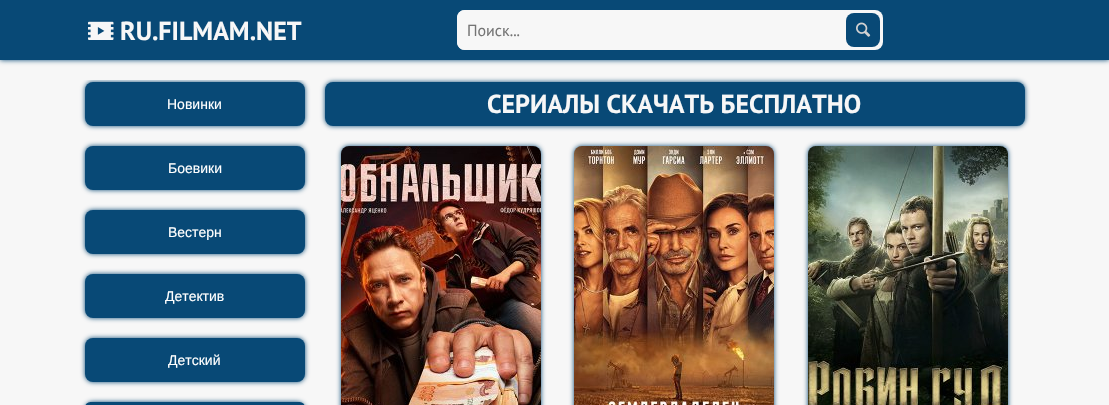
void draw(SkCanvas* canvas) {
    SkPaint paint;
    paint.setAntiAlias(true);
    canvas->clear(0xFFF7F7F7);
    paint.setColor(0xFF084976);
    paint.setMaskFilter(SkMaskFilter::MakeBlur(kNormal_SkBlurStyle, 2.5f));
    canvas->drawRect(SkRect::MakeXYWH(0, 0, 1109, 60), paint);
    paint.setMaskFilter(nullptr);
    canvas->drawRect(SkRect::MakeXYWH(0, 0, 1109, 60), paint);
    canvas->drawImageRect(SkImages::DeferredFromEncodedData(SkData::MakeFromFileName("img1.png")), SkRect::MakeXYWH(88, 21, 26, 19), SkSamplingOptions());
    SkFont font1(fontMgr->matchFamilyStyle("PT Sans", SkFontStyle::Bold()), 26);
    font1.setSubpixel(true);
    paint.setColor(0xFFF7F7F7);
    canvas->drawString("RU.FILMAM.NET", 120, 40, font1, paint);
    canvas->drawRoundRect(SkRect::MakeXYWH(457, 10, 426, 40), 8, 8, paint);
    canvas->drawPath(SkPathBuilder().moveTo(465, 10).lineTo(840, 10).lineTo(840, 50).lineTo(465, 50).cubicTo(460.5f, 50, 457, 46.5f, 457, 42).lineTo(457, 18).cubicTo(457, 13.5f, 460.5f, 10, 465, 10).close().detach(), paint);
    SkFont font2(fontMgr->matchFamilyStyle("PT Sans", SkFontStyle::Normal()), 16);
    font2.setSubpixel(true);
    paint.setColor(0xFF757575);
    canvas->drawString("Поиск...", 467, 36, font2, paint);
    paint.setColor(0xFF084976);
    canvas->drawRoundRect(SkRect::MakeXYWH(846, 13, 34, 34), 8, 8, paint);
    canvas->drawImageRect(SkImages::DeferredFromEncodedData(SkData::MakeFromFileName("img2.png")), SkRect::MakeXYWH(856, 22, 15, 15), SkSamplingOptions());
    canvas->save();
    canvas->clipRect(SkRect::MakeXYWH(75, 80, 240, 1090));
    paint.setMaskFilter(SkMaskFilter::MakeBlur(kNormal_SkBlurStyle, 2.5f));
    canvas->drawRoundRect(SkRect::MakeXYWH(85, 82, 220, 44), 8, 8, paint);
    paint.setMaskFilter(nullptr);
    canvas->restore();
    canvas->drawRoundRect(SkRect::MakeXYWH(85, 82, 220, 44), 8, 8, paint);
    SkFont font3(fontMgr->matchFamilyStyle("Liberation Sans", SkFontStyle::Normal()), 14);
    font3.setSubpixel(true);
    paint.setColor(0xFFFFFFFF);
    canvas->drawString("Новинки", 167, 109, font3, paint);
    paint.setColor(0xFF084976);
    paint.setMaskFilter(SkMaskFilter::MakeBlur(kNormal_SkBlurStyle, 2.5f));
    canvas->drawRoundRect(SkRect::MakeXYWH(85, 146, 220, 44), 8, 8, paint);
    paint.setMaskFilter(nullptr);
    canvas->drawRoundRect(SkRect::MakeXYWH(85, 146, 220, 44), 8, 8, paint);
    paint.setColor(0xFFFFFFFF);
    canvas->drawString("Боевики", 168, 173, font3, paint);
    paint.setColor(0xFF084976);
    paint.setMaskFilter(SkMaskFilter::MakeBlur(kNormal_SkBlurStyle, 2.5f));
    canvas->drawRoundRect(SkRect::MakeXYWH(85, 210, 220, 44), 8, 8, paint);
    paint.setMaskFilter(nullptr);
    canvas->drawRoundRect(SkRect::MakeXYWH(85, 210, 220, 44), 8, 8, paint);
    paint.setColor(0xFFFFFFFF);
    canvas->drawString("Вестерн", 168, 237, font3, paint);
    paint.setColor(0xFF084976);
    paint.setMaskFilter(SkMaskFilter::MakeBlur(kNormal_SkBlurStyle, 2.5f));
    canvas->drawRoundRect(SkRect::MakeXYWH(85, 274, 220, 44), 8, 8, paint);
    paint.setMaskFilter(nullptr);
    canvas->drawRoundRect(SkRect::MakeXYWH(85, 274, 220, 44), 8, 8, paint);
    paint.setColor(0xFFFFFFFF);
    canvas->drawString("Детектив", 165, 301, font3, paint);
    paint.setColor(0xFF084976);
    paint.setMaskFilter(SkMaskFilter::MakeBlur(kNormal_SkBlurStyle, 2.5f));
    canvas->drawRoundRect(SkRect::MakeXYWH(85, 338, 220, 44), 8, 8, paint);
    paint.setMaskFilter(nullptr);
    canvas->drawRoundRect(SkRect::MakeXYWH(85, 338, 220, 44), 8, 8, paint);
    paint.setColor(0xFFFFFFFF);
    canvas->drawString("Детский", 168, 365, font3, paint);
    paint.setColor(0xFF084976);
    paint.setMaskFilter(SkMaskFilter::MakeBlur(kNormal_SkBlurStyle, 2.5f));
    canvas->drawRoundRect(SkRect::MakeXYWH(85, 402, 220, 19), 8, 8, paint);
    paint.setMaskFilter(nullptr);
    canvas->drawRoundRect(SkRect::MakeXYWH(85, 402, 220, 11), 8, 8, paint);
    paint.setMaskFilter(SkMaskFilter::MakeBlur(kNormal_SkBlurStyle, 2.5f));
    canvas->drawRoundRect(SkRect::MakeXYWH(325, 82, 700, 44), 8, 8, paint);
    paint.setMaskFilter(nullptr);
    canvas->drawRoundRect(SkRect::MakeXYWH(325, 82, 700, 44), 8, 8, paint);
    paint.setColor(0xFFF7F7F7);
    canvas->drawString("СЕРИАЛЫ СКАЧАТЬ БЕСПЛАТНО", 487, 113, font1, paint);
    paint.setColor(0xFF084976);
    paint.setMaskFilter(SkMaskFilter::MakeBlur(kNormal_SkBlurStyle, 2.5f));
    canvas->drawRoundRect(SkRect::MakeXYWH(341, 146, 200, 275), 8, 8, paint);
    paint.setMaskFilter(nullptr);
    canvas->drawImageRect(SkImages::DeferredFromEncodedData(SkData::MakeFromFileName("img3.png")), SkRect::MakeXYWH(341, 146, 200, 259), SkSamplingOptions());
    paint.setMaskFilter(SkMaskFilter::MakeBlur(kNormal_SkBlurStyle, 2.5f));
    canvas->drawRoundRect(SkRect::MakeXYWH(574, 146, 200, 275), 8, 8, paint);
    paint.setMaskFilter(nullptr);
    canvas->drawImageRect(SkImages::DeferredFromEncodedData(SkData::MakeFromFileName("img4.png")), SkRect::MakeXYWH(574, 146, 200, 259), SkSamplingOptions());
    paint.setMaskFilter(SkMaskFilter::MakeBlur(kNormal_SkBlurStyle, 2.5f));
    canvas->drawRoundRect(SkRect::MakeXYWH(808, 146, 200, 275), 8, 8, paint);
    paint.setMaskFilter(nullptr);
    canvas->drawImageRect(SkImages::DeferredFromEncodedData(SkData::MakeFromFileName("img5.png")), SkRect::MakeXYWH(808, 146, 200, 259), SkSamplingOptions());
}
